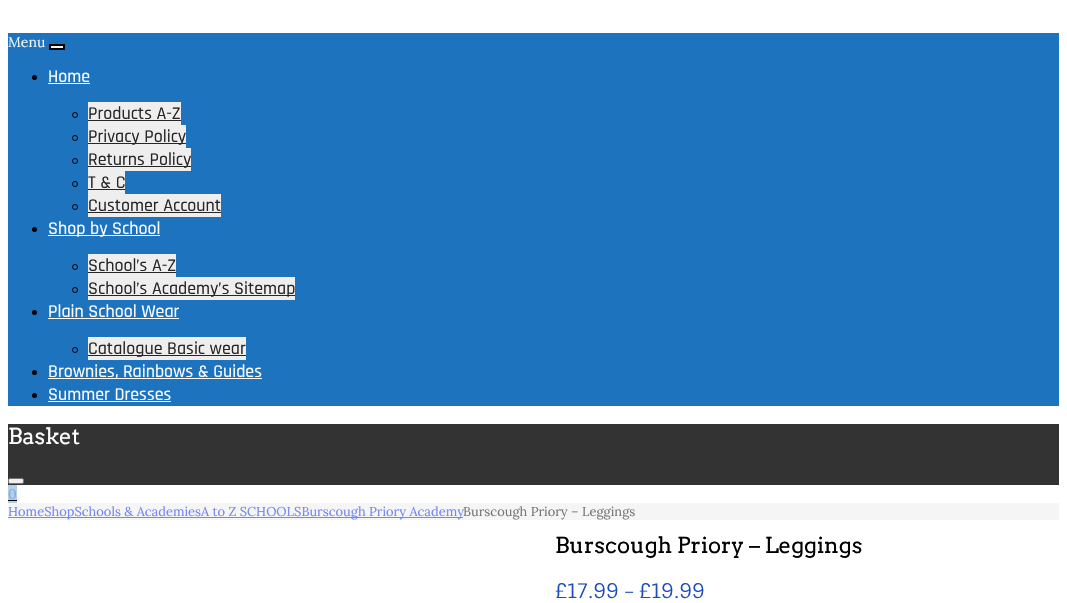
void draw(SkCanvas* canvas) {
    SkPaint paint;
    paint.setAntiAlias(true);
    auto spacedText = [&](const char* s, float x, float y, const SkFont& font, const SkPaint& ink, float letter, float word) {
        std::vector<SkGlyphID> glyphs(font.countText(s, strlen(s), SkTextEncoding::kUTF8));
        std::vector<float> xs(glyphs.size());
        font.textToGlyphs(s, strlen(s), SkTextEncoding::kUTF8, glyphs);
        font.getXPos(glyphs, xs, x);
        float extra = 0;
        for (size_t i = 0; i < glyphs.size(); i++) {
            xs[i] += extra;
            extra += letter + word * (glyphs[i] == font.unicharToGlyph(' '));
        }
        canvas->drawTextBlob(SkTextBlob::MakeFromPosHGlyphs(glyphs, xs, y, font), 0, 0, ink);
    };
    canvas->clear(0xFFFFFFFF);
    paint.setColor(0xFF1E73BE);
    canvas->drawRect(SkRect::MakeXYWH(8, 33, 1051, 373), paint);
    SkFont font1(fontMgr->matchFamilyStyle("Lora", SkFontStyle::Normal()), 14);
    font1.setSubpixel(true);
    paint.setColor(0xFFF3F3F3);
    canvas->drawString("Menu", 8, 47, font1, paint);
    canvas->drawRect(SkRect::MakeXYWH(50, 45, 14, 4), paint);
    paint.setStyle(SkPaint::kStroke_Style);
    paint.setStrokeWidth(2);
    paint.setColor(0xFF000000);
    canvas->drawRect(SkRect::MakeXYWH(50, 45, 14, 4), paint);
    paint.setStyle(SkPaint::kFill_Style);
    canvas->drawCircle(34.5f, 77.5f, 2.5f, paint);
    SkFont font2(fontMgr->matchFamilyStyle("Rajdhani", SkFontStyle(500, SkFontStyle::kNormal_Width, SkFontStyle::kUpright_Slant)), 18);
    font2.setSubpixel(true);
    paint.setColor(0xFFFFFFFF);
    canvas->drawString("Home", 48, 82, font2, paint);
    canvas->drawRect(SkRect::MakeXYWH(48, 83, 42, 1), paint);
    paint.setStyle(SkPaint::kStroke_Style);
    paint.setStrokeWidth(1);
    paint.setColor(0xFF000000);
    canvas->drawCircle(75, 115, 2.5f, paint);
    paint.setStyle(SkPaint::kFill_Style);
    paint.setColor(0xFFEEEEEE);
    canvas->drawRect(SkRect::MakeXYWH(88, 102, 93, 23), paint);
    paint.setColor(0xFF262626);
    canvas->drawString("Products A-Z", 88, 119, font2, paint);
    canvas->drawRect(SkRect::MakeXYWH(88, 120, 93, 1), paint);
    paint.setStyle(SkPaint::kStroke_Style);
    paint.setColor(0xFF000000);
    canvas->drawCircle(75, 138, 2.5f, paint);
    paint.setStyle(SkPaint::kFill_Style);
    paint.setColor(0xFFEEEEEE);
    canvas->drawRect(SkRect::MakeXYWH(88, 125, 98, 23), paint);
    paint.setColor(0xFF262626);
    canvas->drawRect(SkRect::MakeXYWH(88, 143, 98, 1), paint);
    canvas->drawString("Privacy Policy", 88, 142, font2, paint);
    paint.setStyle(SkPaint::kStroke_Style);
    paint.setColor(0xFF000000);
    canvas->drawCircle(75, 161, 2.5f, paint);
    paint.setStyle(SkPaint::kFill_Style);
    paint.setColor(0xFFEEEEEE);
    canvas->drawRect(SkRect::MakeXYWH(88, 148, 103, 23), paint);
    paint.setColor(0xFF262626);
    canvas->drawRect(SkRect::MakeXYWH(88, 166, 103, 1), paint);
    canvas->drawString("Returns Policy", 88, 165, font2, paint);
    paint.setStyle(SkPaint::kStroke_Style);
    paint.setColor(0xFF000000);
    canvas->drawCircle(75, 184, 2.5f, paint);
    paint.setStyle(SkPaint::kFill_Style);
    paint.setColor(0xFFEEEEEE);
    canvas->drawRect(SkRect::MakeXYWH(88, 171, 37, 23), paint);
    paint.setColor(0xFF262626);
    canvas->drawString("T & C", 88, 188, font2, paint);
    canvas->drawRect(SkRect::MakeXYWH(88, 189, 37, 1), paint);
    paint.setStyle(SkPaint::kStroke_Style);
    paint.setColor(0xFF000000);
    canvas->drawCircle(75, 207, 2.5f, paint);
    paint.setStyle(SkPaint::kFill_Style);
    paint.setColor(0xFFEEEEEE);
    canvas->drawRect(SkRect::MakeXYWH(88, 194, 133, 23), paint);
    paint.setColor(0xFF262626);
    canvas->drawString("Customer Account", 88, 211, font2, paint);
    canvas->drawRect(SkRect::MakeXYWH(88, 212, 133, 1), paint);
    paint.setColor(0xFF000000);
    canvas->drawCircle(34.5f, 229.5f, 2.5f, paint);
    paint.setColor(0xFFFFFFFF);
    canvas->drawRect(SkRect::MakeXYWH(48, 235, 112, 1), paint);
    canvas->drawString("Shop by School", 48, 234, font2, paint);
    paint.setStyle(SkPaint::kStroke_Style);
    paint.setColor(0xFF000000);
    canvas->drawCircle(75, 267, 2.5f, paint);
    paint.setStyle(SkPaint::kFill_Style);
    paint.setColor(0xFFEEEEEE);
    canvas->drawRect(SkRect::MakeXYWH(88, 254, 88, 23), paint);
    paint.setColor(0xFF262626);
    canvas->drawString("School’s A-Z", 88, 271, font2, paint);
    canvas->drawRect(SkRect::MakeXYWH(88, 272, 88, 1), paint);
    paint.setStyle(SkPaint::kStroke_Style);
    paint.setColor(0xFF000000);
    canvas->drawCircle(75, 290, 2.5f, paint);
    paint.setStyle(SkPaint::kFill_Style);
    paint.setColor(0xFFEEEEEE);
    canvas->drawRect(SkRect::MakeXYWH(88, 277, 207, 23), paint);
    paint.setColor(0xFF262626);
    canvas->drawRect(SkRect::MakeXYWH(88, 295, 207, 1), paint);
    canvas->drawString("School’s Academy’s Sitemap", 88, 294, font2, paint);
    paint.setColor(0xFF000000);
    canvas->drawCircle(34.5f, 312.5f, 2.5f, paint);
    paint.setColor(0xFFFFFFFF);
    canvas->drawString("Plain School Wear", 48, 317, font2, paint);
    canvas->drawRect(SkRect::MakeXYWH(48, 318, 131, 1), paint);
    paint.setStyle(SkPaint::kStroke_Style);
    paint.setColor(0xFF000000);
    canvas->drawCircle(75, 350, 2.5f, paint);
    paint.setStyle(SkPaint::kFill_Style);
    paint.setColor(0xFFEEEEEE);
    canvas->drawRect(SkRect::MakeXYWH(88, 337, 158, 23), paint);
    paint.setColor(0xFF262626);
    canvas->drawRect(SkRect::MakeXYWH(88, 355, 158, 1), paint);
    canvas->drawString("Catalogue Basic wear", 88, 354, font2, paint);
    paint.setColor(0xFF000000);
    canvas->drawCircle(34.5f, 372.5f, 2.5f, paint);
    paint.setColor(0xFFFFFFFF);
    canvas->drawRect(SkRect::MakeXYWH(48, 378, 214, 1), paint);
    canvas->drawString("Brownies, Rainbows & Guides", 48, 377, font2, paint);
    paint.setColor(0xFF000000);
    canvas->drawCircle(34.5f, 395.5f, 2.5f, paint);
    paint.setColor(0xFFFFFFFF);
    canvas->drawString("Summer Dresses", 48, 400, font2, paint);
    canvas->drawRect(SkRect::MakeXYWH(48, 401, 123, 1), paint);
    paint.setColor(0xFF333333);
    canvas->drawRect(SkRect::MakeXYWH(8, 424, 1051, 61), paint);
    SkFont font3(fontMgr->matchFamilyStyle("Arvo", SkFontStyle::Normal()), 22);
    font3.setSubpixel(true);
    paint.setColor(0xFFFFFFFF);
    canvas->drawString("Basket", 8, 444, font3, paint);
    paint.setColor(0xFFEFEFEF);
    canvas->drawRoundRect(SkRect::MakeXYWH(8.5f, 478.5f, 15, 5), 1.5f, 1.5f, paint);
    paint.setStyle(SkPaint::kStroke_Style);
    paint.setColor(0xFF767676);
    canvas->drawRoundRect(SkRect::MakeXYWH(8.5f, 478.5f, 15, 5), 1.5f, 1.5f, paint);
    paint.setStyle(SkPaint::kFill_Style);
    paint.setColor(0xFFB3CFE9);
    canvas->drawRect(SkRect::MakeXYWH(8, 485, 9, 18), paint);
    paint.setColor(0xFF80B0DA);
    canvas->drawString("0", 8, 499, font1, paint);
    paint.setColor(0xFF000000);
    canvas->drawRect(SkRect::MakeXYWH(8, 500, 9, 1), paint);
    paint.setColor(0xFFF5F5F5);
    canvas->drawRect(SkRect::MakeXYWH(8, 503, 1051, 17), paint);
    paint.setColor(0xFF7187F6);
    canvas->drawRect(SkRect::MakeXYWH(8, 517, 455, 1), paint);
    SkFont font4(fontMgr->matchFamilyStyle("Lora", SkFontStyle::Normal()), 12.9f);
    font4.setSubpixel(true);
    canvas->drawString("HomeShopSchools & AcademiesA to Z SCHOOLSBurscough Priory Academy", 8, 516, font4, paint);
    paint.setColor(0xFF767676);
    canvas->drawString("Burscough Priory – Leggings", 463, 516, font4, paint);
    paint.setColor(0xFF000000);
    canvas->drawString("Burscough Priory – Leggings", 555, 553, font3, paint);
    SkFont font5(fontMgr->matchFamilyStyle("Fauna One", SkFontStyle::Normal()), 20);
    font5.setSubpixel(true);
    paint.setColor(0xFF1D4ABD);
    spacedText("£17.99", 555, 598, font5, paint, 0.25f, 0);
    SkFont font6(fontMgr->matchFamilyStyle("Fauna One", SkFontStyle::Normal()), 18);
    font6.setSubpixel(true);
    spacedText("–", 624, 598, font6, paint, 0.25f, 0);
    spacedText("£19.99", 639, 598, font5, paint, 0.25f, 0);
}
